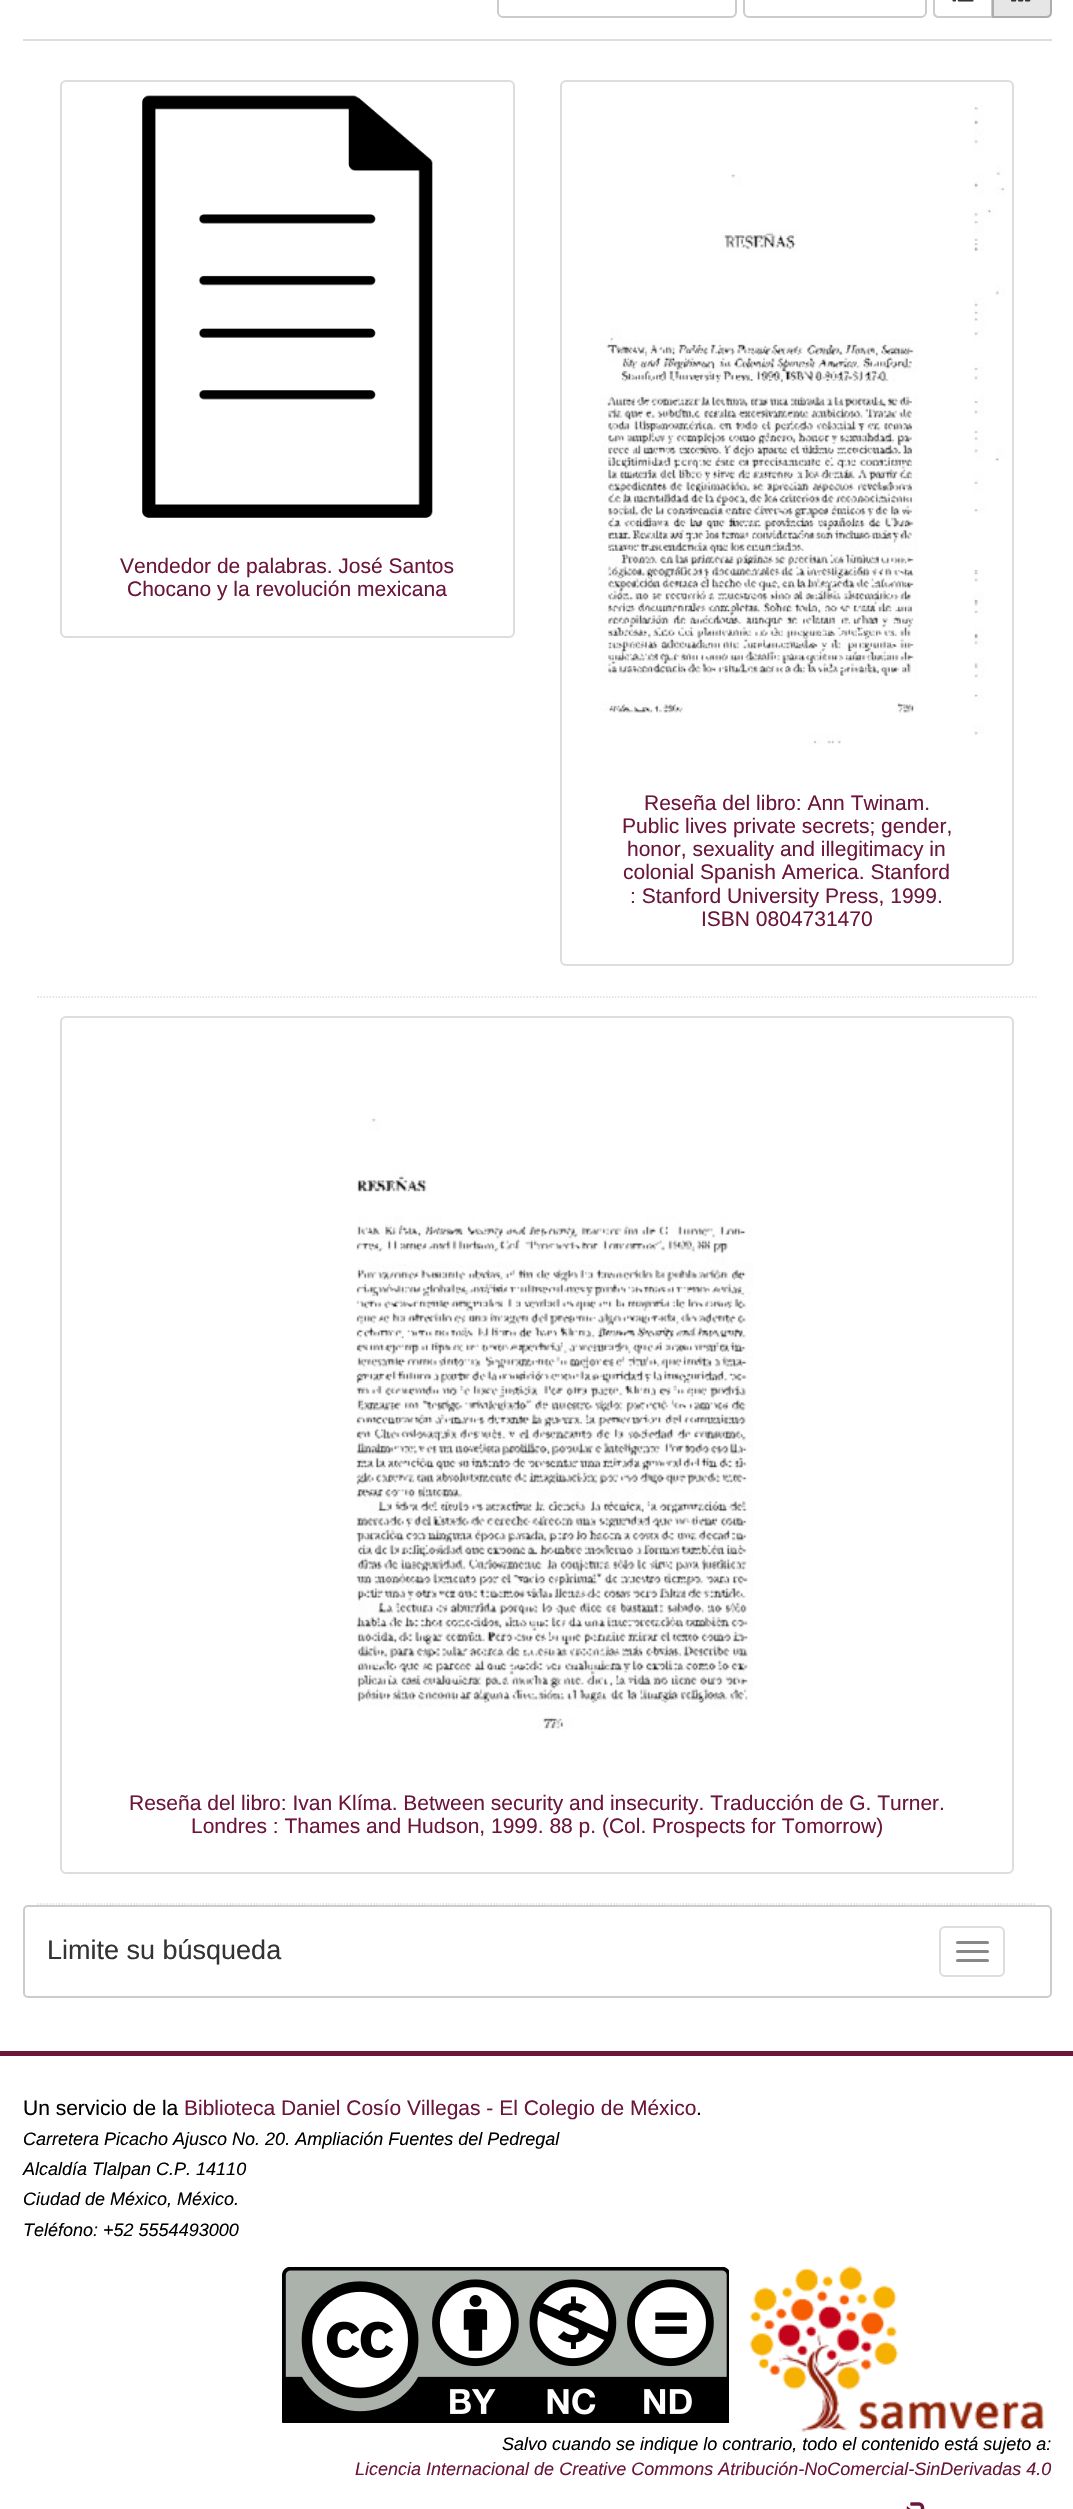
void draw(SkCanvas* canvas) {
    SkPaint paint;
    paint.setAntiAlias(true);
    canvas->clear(0xFFFFFFFF);
    paint.setColor(0xFFDDDDDD);
    canvas->drawRect(SkRect::MakeXYWH(23, 39, 1029, 2), paint);
    paint.setStyle(SkPaint::kStroke_Style);
    paint.setStrokeWidth(2);
    paint.setColor(0xFFCCCCCC);
    canvas->drawRoundRect(SkRect::MakeXYWH(498, -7, 238, 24), 5, 5, paint);
    canvas->drawRoundRect(SkRect::MakeXYWH(744, -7, 182, 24), 5, 5, paint);
    canvas->drawPath(SkPathBuilder().moveTo(939, -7).lineTo(992, -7).lineTo(992, 17).lineTo(939, 17).cubicTo(936, 17, 934, 15, 934, 12).lineTo(934, -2).cubicTo(934, -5, 936, -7, 939, -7).close().detach(), paint);
    canvas->drawImageRect(SkImages::DeferredFromEncodedData(SkData::MakeFromFileName("img1.png")), SkRect::MakeXYWH(952, 0, 22, 2), SkSamplingOptions());
    paint.setStyle(SkPaint::kFill_Style);
    paint.setColor(0xFFE6E6E6);
    canvas->drawPath(SkPathBuilder().moveTo(993, -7).lineTo(1046, -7).cubicTo(1049, -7, 1051, -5, 1051, -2).lineTo(1051, 12).cubicTo(1051, 15, 1049, 17, 1046, 17).lineTo(993, 17).close().detach(), paint);
    paint.setStyle(SkPaint::kStroke_Style);
    paint.setColor(0xFFADADAD);
    canvas->drawPath(SkPathBuilder().moveTo(993, -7).lineTo(1046, -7).cubicTo(1049, -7, 1051, -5, 1051, -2).lineTo(1051, 12).cubicTo(1051, 15, 1049, 17, 1046, 17).lineTo(993, 17).close().detach(), paint);
    canvas->drawImageRect(SkImages::DeferredFromEncodedData(SkData::MakeFromFileName("img2.png")), SkRect::MakeXYWH(1011, 0, 20, 2), SkSamplingOptions());
    paint.setStrokeWidth(1.5f);
    paint.setColor(0xFFDDDDDD);
    paint.setPathEffect(SkDashPathEffect::Make({{1.5f, 1.5f}}, 0));
    canvas->drawPath(SkPathBuilder().moveTo(37.5f, 997).lineTo(537, 997).detach(), paint);
    paint.setPathEffect(nullptr);
    paint.setStrokeWidth(2);
    canvas->drawRoundRect(SkRect::MakeXYWH(61, 81, 453, 556), 5, 5, paint);
    canvas->drawImageRect(SkImages::DeferredFromEncodedData(SkData::MakeFromFileName("img3.png")), SkRect::MakeXYWH(142, 95, 291, 423), SkSamplingOptions());
    SkFont font1(fontMgr->matchFamilyStyle("Liberation Sans", SkFontStyle::Normal()), 21);
    font1.setSubpixel(true);
    paint.setStyle(SkPaint::kFill_Style);
    paint.setColor(0xFF6B163A);
    canvas->drawString("Vendedor de palabras. José Santos", 120, 573, font1, paint);
    canvas->drawString("Chocano y la revolución mexicana", 127, 596, font1, paint);
    paint.setStyle(SkPaint::kStroke_Style);
    paint.setStrokeWidth(1.5f);
    paint.setColor(0xFFDDDDDD);
    paint.setPathEffect(SkDashPathEffect::Make({{1.5f, 1.5f}}, 0));
    canvas->drawPath(SkPathBuilder().moveTo(537, 997).lineTo(1036.5f, 997).detach(), paint);
    paint.setPathEffect(nullptr);
    paint.setStrokeWidth(2);
    canvas->drawRoundRect(SkRect::MakeXYWH(561, 81, 452, 884), 5, 5, paint);
    canvas->drawImageRect(SkImages::DeferredFromEncodedData(SkData::MakeFromFileName("img4.png")), SkRect::MakeXYWH(600, 105, 406, 640), SkSamplingOptions());
    paint.setStyle(SkPaint::kFill_Style);
    paint.setColor(0xFF6B163A);
    canvas->drawString("Reseña del libro: Ann Twinam.", 644, 810, font1, paint);
    canvas->drawString("Public lives private secrets; gender,", 622, 833, font1, paint);
    canvas->drawString("honor, sexuality and illegitimacy in", 627, 856, font1, paint);
    canvas->drawString("colonial Spanish America. Stanford", 623, 879, font1, paint);
    canvas->drawString(": Stanford University Press, 1999.", 630, 903, font1, paint);
    canvas->drawString("ISBN 0804731470", 701, 926, font1, paint);
    paint.setStyle(SkPaint::kStroke_Style);
    paint.setStrokeWidth(1.5f);
    paint.setColor(0xFFDDDDDD);
    paint.setPathEffect(SkDashPathEffect::Make({{1.5f, 1.5f}}, 0));
    canvas->drawPath(SkPathBuilder().moveTo(37.5f, 1904).lineTo(1036.5f, 1904).detach(), paint);
    paint.setPathEffect(nullptr);
    paint.setStrokeWidth(2);
    canvas->drawRoundRect(SkRect::MakeXYWH(61, 1017, 952, 856), 5, 5, paint);
    canvas->drawImageRect(SkImages::DeferredFromEncodedData(SkData::MakeFromFileName("img5.png")), SkRect::MakeXYWH(356, 1118, 397, 612), SkSamplingOptions());
    paint.setStyle(SkPaint::kFill_Style);
    paint.setColor(0xFF6B163A);
    canvas->drawString("Reseña del libro: Ivan Klíma. Between security and insecurity. Traducción de G. Turner.", 129, 1810, font1, paint);
    canvas->drawString("Londres : Thames and Hudson, 1999. 88 p. (Col. Prospects for Tomorrow)", 191, 1833, font1, paint);
    paint.setStyle(SkPaint::kStroke_Style);
    paint.setColor(0xFFCCCCCC);
    canvas->drawRoundRect(SkRect::MakeXYWH(24, 1906, 1027, 91), 4, 4, paint);
    SkFont font2(fontMgr->matchFamilyStyle("Liberation Sans", SkFontStyle::Normal()), 27);
    font2.setSubpixel(true);
    paint.setStyle(SkPaint::kFill_Style);
    paint.setColor(0xFF333333);
    canvas->drawString("Limite su búsqueda", 47, 1959, font2, paint);
    paint.setStyle(SkPaint::kStroke_Style);
    paint.setColor(0xFFDDDDDD);
    canvas->drawRoundRect(SkRect::MakeXYWH(940, 1927, 64, 49), 5, 5, paint);
    paint.setStyle(SkPaint::kFill_Style);
    paint.setColor(0xFF888888);
    canvas->drawRoundRect(SkRect::MakeXYWH(956, 1941, 33, 3), 1.5f, 1.5f, paint);
    canvas->drawRoundRect(SkRect::MakeXYWH(956, 1950, 33, 3), 1.5f, 1.5f, paint);
    canvas->drawRoundRect(SkRect::MakeXYWH(956, 1959, 33, 3), 1.5f, 1.5f, paint);
    paint.setColor(0xFF6B163A);
    canvas->drawRect(SkRect::MakeXYWH(0, 2051, 1073, 5), paint);
    paint.setColor(0xFF000000);
    canvas->drawString("Un servicio de la", 23, 2115, font1, paint);
    paint.setColor(0xFF6B163A);
    canvas->drawString("Biblioteca Daniel Cosío Villegas - El Colegio de México", 184, 2115, font1, paint);
    paint.setColor(0xFF000000);
    canvas->drawString(".", 696, 2115, font1, paint);
    SkFont font3(fontMgr->matchFamilyStyle("Liberation Sans", SkFontStyle::Italic()), 18);
    font3.setSubpixel(true);
    canvas->drawString("Carretera Picacho Ajusco No. 20. Ampliación Fuentes del Pedregal", 23, 2145, font3, paint);
    canvas->drawString("Alcaldía Tlalpan C.P. 14110", 23, 2175, font3, paint);
    canvas->drawString("Ciudad de México, México.", 23, 2205, font3, paint);
    canvas->drawString("Teléfono: +52 5554493000", 23, 2236, font3, paint);
    canvas->drawImageRect(SkImages::DeferredFromEncodedData(SkData::MakeFromFileName("img6.png")), SkRect::MakeXYWH(282, 2267, 447, 156), SkSamplingOptions());
    canvas->drawImageRect(SkImages::DeferredFromEncodedData(SkData::MakeFromFileName("img7.png")), SkRect::MakeXYWH(750, 2266, 294, 166), SkSamplingOptions());
    canvas->drawString("Salvo cuando se indique lo contrario, todo el contenido está sujeto a:", 502, 2450, font3, paint);
    paint.setColor(0xFF6B163A);
    canvas->drawString("Licencia Internacional de Creative Commons Atribución-NoComercial-SinDerivadas 4.0", 355, 2475, font3, paint);
    canvas->drawImageRect(SkImages::DeferredFromEncodedData(SkData::MakeFromFileName("img8.png")), SkRect::MakeXYWH(906, 2502, 19, 7), SkSamplingOptions());
}
